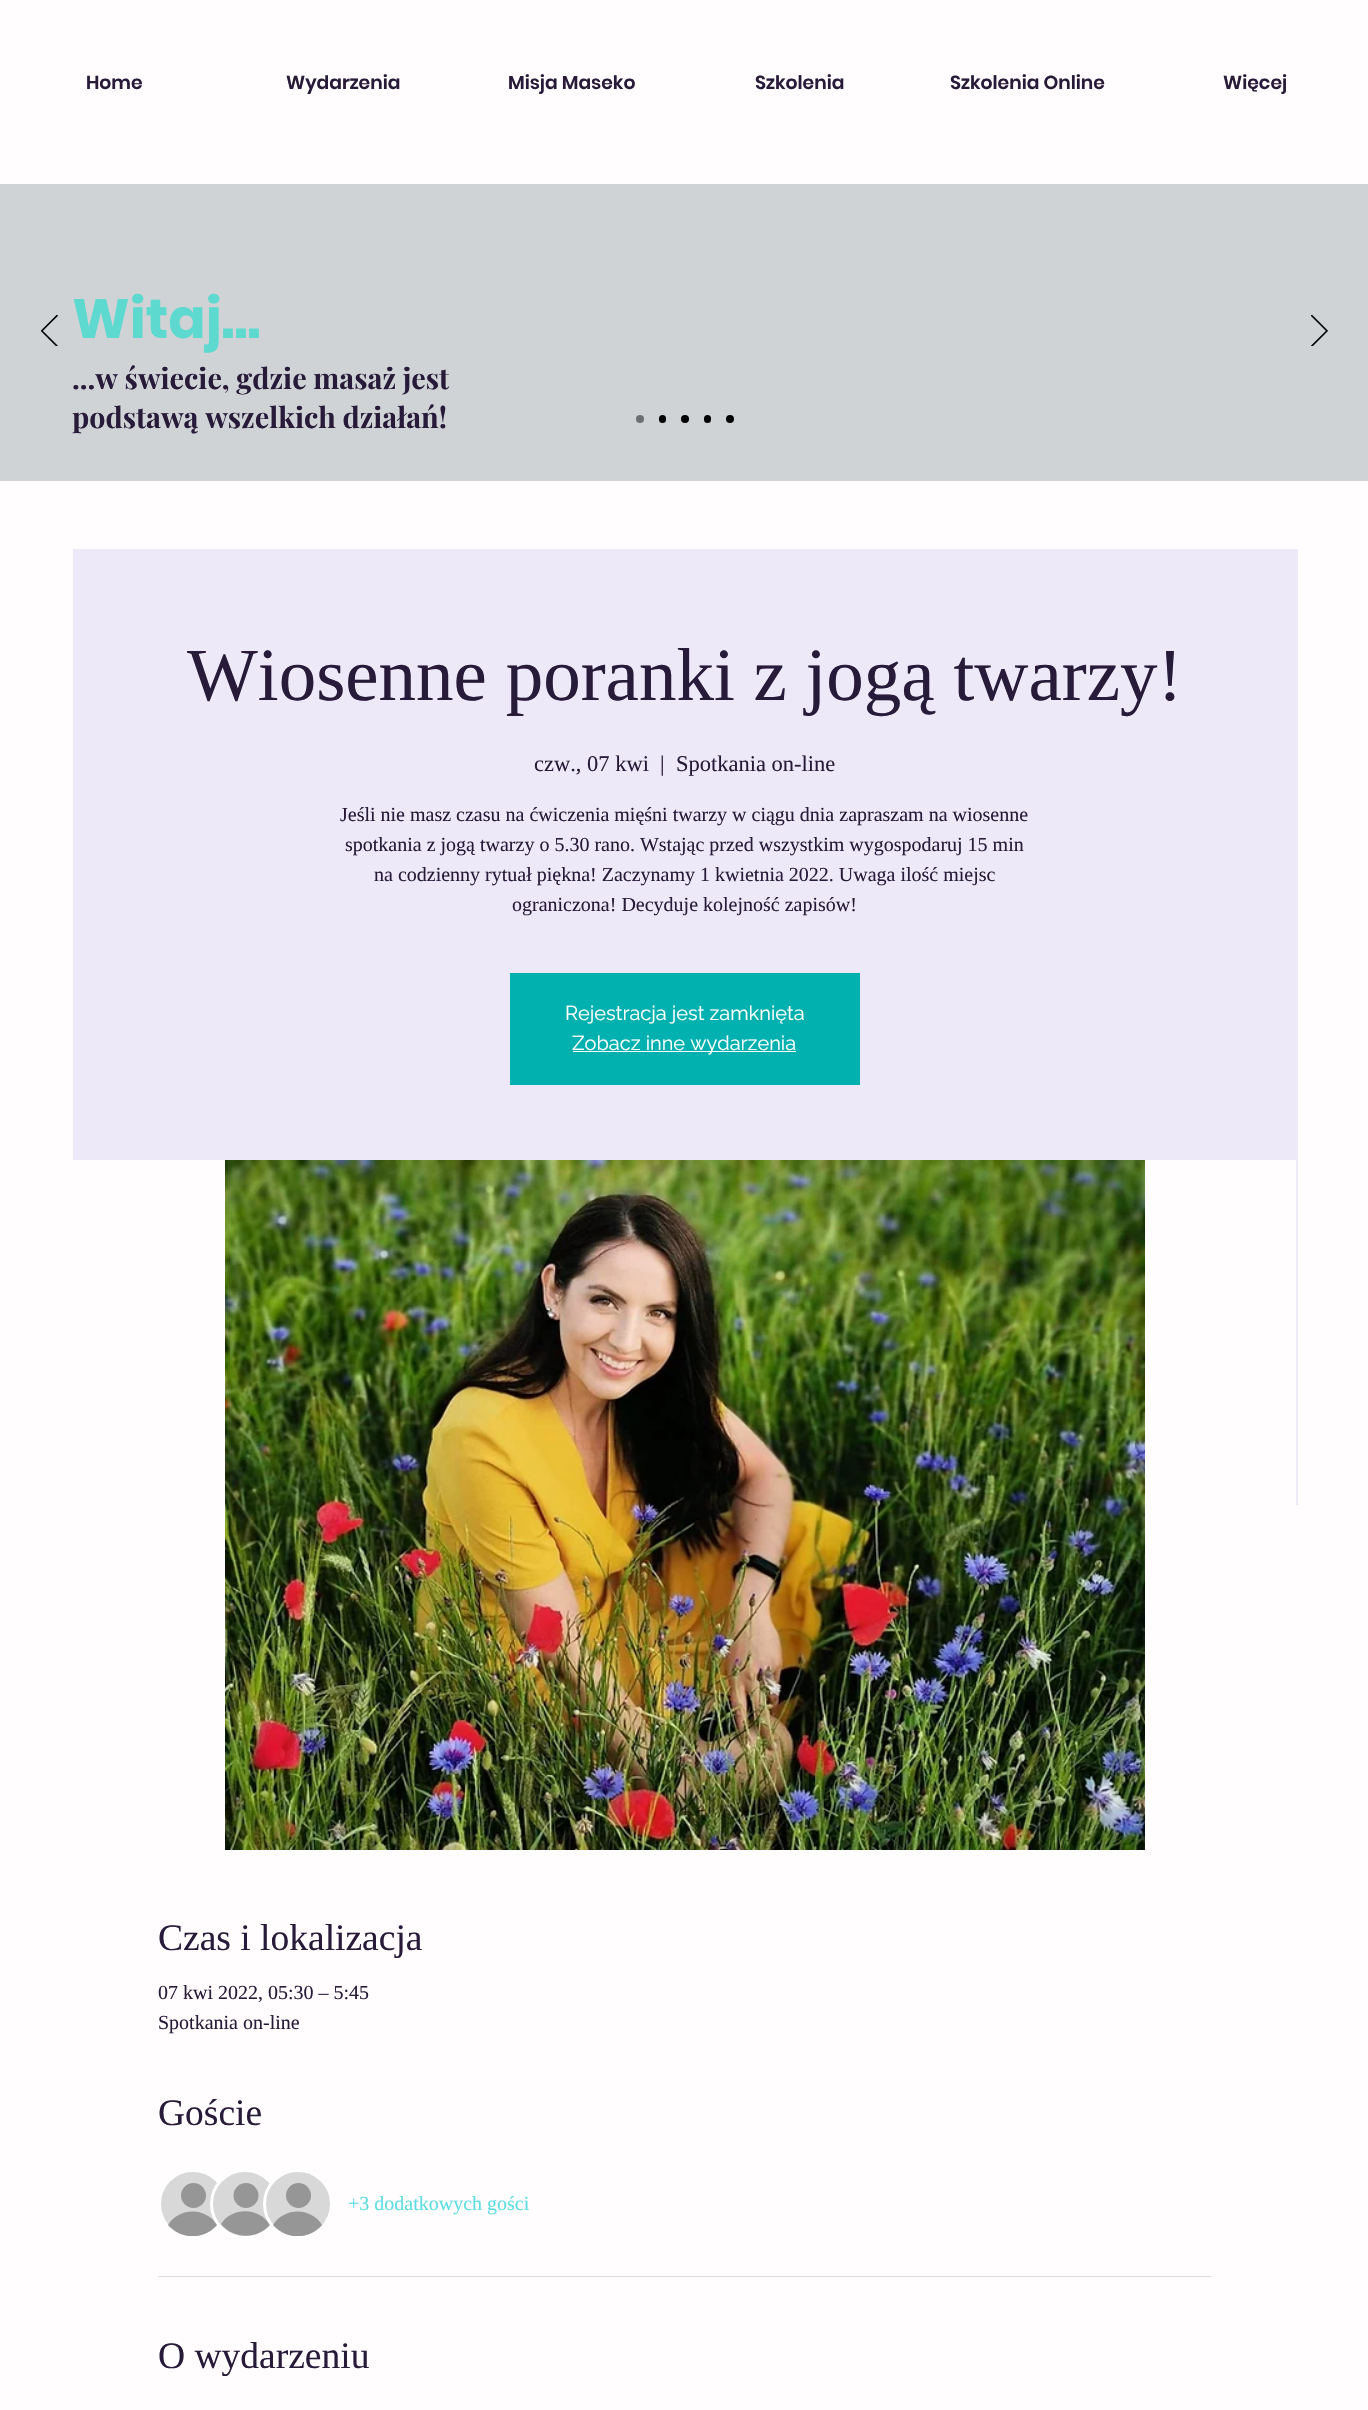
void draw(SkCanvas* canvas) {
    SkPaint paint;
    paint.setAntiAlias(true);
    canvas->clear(0xFFFFFDFD);
    SkFont font1(fontMgr->matchFamilyStyle("Poppins", SkFontStyle(600, SkFontStyle::kNormal_Width, SkFontStyle::kUpright_Slant)), 18.75f);
    font1.setSubpixel(true);
    paint.setColor(0xFF281A39);
    canvas->drawString("Home", 86, 89, font1, paint);
    canvas->drawString("Wydarzenia", 286, 89, font1, paint);
    canvas->drawString("Misja Maseko", 508, 89, font1, paint);
    canvas->drawString("Szkolenia", 755, 89, font1, paint);
    canvas->drawString("Szkolenia Online", 950, 89, font1, paint);
    canvas->drawString("Więcej", 1223, 89, font1, paint);
    paint.setColor(0xFFCFD3D6);
    canvas->drawRect(SkRect::MakeXYWH(0, 184, 1368, 297), paint);
    canvas->drawImageRect(SkImages::DeferredFromEncodedData(SkData::MakeFromFileName("img1.png")), SkRect::MakeXYWH(41, 315, 17, 31), SkSamplingOptions());
    SkFont font2(fontMgr->matchFamilyStyle("Poppins", SkFontStyle::Bold()), 55);
    font2.setSubpixel(true);
    paint.setColor(0xFF5DD9CF);
    canvas->drawString("Witaj...", 72, 338, font2, paint);
    SkFont font3(fontMgr->matchFamilyStyle("Playfair Display", SkFontStyle::Bold()), 28.75f);
    font3.setSubpixel(true);
    paint.setColor(0xFF281A39);
    canvas->drawString("...w świecie, gdzie masaż jest", 72, 389, font3, paint);
    canvas->drawString("podstawą wszelkich działań!", 72, 428, font3, paint);
    canvas->drawImageRect(SkImages::DeferredFromEncodedData(SkData::MakeFromFileName("img2.png")), SkRect::MakeXYWH(1311, 315, 17, 31), SkSamplingOptions());
    paint.setColor(0xFF6C6E6F);
    canvas->drawCircle(640, 419, 4, paint);
    paint.setColor(0xFF000000);
    canvas->drawRoundRect(SkRect::MakeXYWH(659, 415, 7, 8), 3.5f, 3.5f, paint);
    canvas->drawCircle(685, 419, 4, paint);
    canvas->drawRoundRect(SkRect::MakeXYWH(704, 415, 7, 8), 3.5f, 3.5f, paint);
    canvas->drawCircle(730, 419, 4, paint);
    paint.setColor(0xFFEDE9F8);
    canvas->drawRect(SkRect::MakeXYWH(73, 549, 1225, 956), paint);
    SkFont font4(fontMgr->matchFamilyStyle("Liberation Serif", SkFontStyle::Normal()), 75);
    font4.setSubpixel(true);
    paint.setColor(0xFF281A39);
    canvas->drawString("Wiosenne poranki z jogą twarzy!", 187, 700, font4, paint);
    SkFont font5(fontMgr->matchFamilyStyle("Liberation Serif", SkFontStyle::Normal()), 22.5f);
    font5.setSubpixel(true);
    canvas->drawString("czw., 07 kwi", 534, 771, font5, paint);
    canvas->drawString("|", 660, 771, font5, paint);
    canvas->drawString("Spotkania on-line", 676, 771, font5, paint);
    SkFont font6(fontMgr->matchFamilyStyle("Liberation Serif", SkFontStyle::Normal()), 20);
    font6.setSubpixel(true);
    canvas->drawString("Jeśli nie masz czasu na ćwiczenia mięśni twarzy w ciągu dnia zapraszam na wiosenne", 340, 821, font6, paint);
    canvas->drawString("spotkania z jogą twarzy o 5.30 rano. Wstając przed wszystkim wygospodaruj 15 min", 345, 851, font6, paint);
    canvas->drawString("na codzienny rytuał piękna! Zaczynamy 1 kwietnia 2022. Uwaga ilość miejsc", 374, 881, font6, paint);
    canvas->drawString("ograniczona! Decyduje kolejność zapisów!", 512, 911, font6, paint);
    paint.setColor(0xFF01B1AF);
    canvas->drawRect(SkRect::MakeXYWH(510, 973, 350, 112), paint);
    SkFont font7(fontMgr->matchFamilyStyle("Raleway", SkFontStyle::Normal()), 20);
    font7.setSubpixel(true);
    paint.setColor(0xFFFFFDFD);
    canvas->drawString("Rejestracja jest zamknięta", 565, 1020, font7, paint);
    canvas->drawRect(SkRect::MakeXYWH(573, 1051, 223, 1), paint);
    canvas->drawString("Zobacz inne wydarzenia", 572, 1050, font7, paint);
    canvas->drawRect(SkRect::MakeXYWH(73, 1160, 1223, 345), paint);
    canvas->drawImageRect(SkImages::DeferredFromEncodedData(SkData::MakeFromFileName("img3.png")), SkRect::MakeXYWH(225, 1160, 920, 690), SkSamplingOptions());
    SkFont font8(fontMgr->matchFamilyStyle("Liberation Serif", SkFontStyle::Normal()), 37.5f);
    font8.setSubpixel(true);
    paint.setColor(0xFF281A39);
    canvas->drawString("Czas i lokalizacja", 158, 1950, font8, paint);
    canvas->drawString("07 kwi 2022, 05:30 – 5:45", 158, 1999, font6, paint);
    canvas->drawString("Spotkania on-line", 158, 2029, font6, paint);
    canvas->drawString("Goście", 158, 2125, font8, paint);
    paint.setColor(0xFFD8D8D8);
    canvas->drawCircle(193, 2204, 33.5f, paint);
    paint.setStyle(SkPaint::kStroke_Style);
    paint.setStrokeWidth(3);
    paint.setColor(0xFFFFFFFF);
    canvas->drawCircle(193, 2204, 33.5f, paint);
    paint.setStyle(SkPaint::kFill_Style);
    paint.setColor(0xFF969696);
    canvas->drawCircle(193.5f, 2195.5f, 12.5f, paint);
    canvas->save();
    canvas->clipRect(SkRect::MakeXYWH(160, 2171, 65, 65));
    canvas->drawPath(SkPathBuilder().moveTo(217, 2225).cubicTo(204, 2240, 181, 2240, 168, 2225).cubicTo(179, 2207, 206, 2207, 217, 2225).close().detach(), paint);
    canvas->restore();
    paint.setColor(0xFFD8D8D8);
    canvas->drawCircle(245, 2204, 33.5f, paint);
    paint.setStyle(SkPaint::kStroke_Style);
    paint.setColor(0xFFFFFFFF);
    canvas->drawCircle(245, 2204, 33.5f, paint);
    paint.setStyle(SkPaint::kFill_Style);
    paint.setColor(0xFF969696);
    canvas->drawCircle(246, 2195.5f, 12.5f, paint);
    canvas->drawPath(SkPathBuilder().moveTo(270, 2225).cubicTo(257, 2240, 233, 2239, 221, 2224).cubicTo(232, 2207, 259, 2207, 270, 2225).close().detach(), paint);
    paint.setColor(0xFFD8D8D8);
    canvas->drawCircle(298, 2204, 33.5f, paint);
    paint.setStyle(SkPaint::kStroke_Style);
    paint.setColor(0xFFFFFFFF);
    canvas->drawCircle(298, 2204, 33.5f, paint);
    paint.setStyle(SkPaint::kFill_Style);
    paint.setColor(0xFF969696);
    canvas->drawCircle(298.5f, 2195.5f, 12.5f, paint);
    canvas->save();
    canvas->clipRect(SkRect::MakeXYWH(265, 2171, 65, 65));
    canvas->drawPath(SkPathBuilder().moveTo(322, 2225).cubicTo(309, 2240, 286, 2240, 273, 2225).cubicTo(284, 2207, 311, 2207, 322, 2225).close().detach(), paint);
    canvas->restore();
    paint.setColor(0xFF5CDDE4);
    canvas->drawString("+3 dodatkowych gości", 348, 2210, font6, paint);
    paint.setColor(0xFFDFDBE0);
    canvas->drawRect(SkRect::MakeXYWH(158, 2276, 1053, 1), paint);
    paint.setColor(0xFF281A39);
    canvas->drawString("O wydarzeniu", 158, 2368, font8, paint);
}
